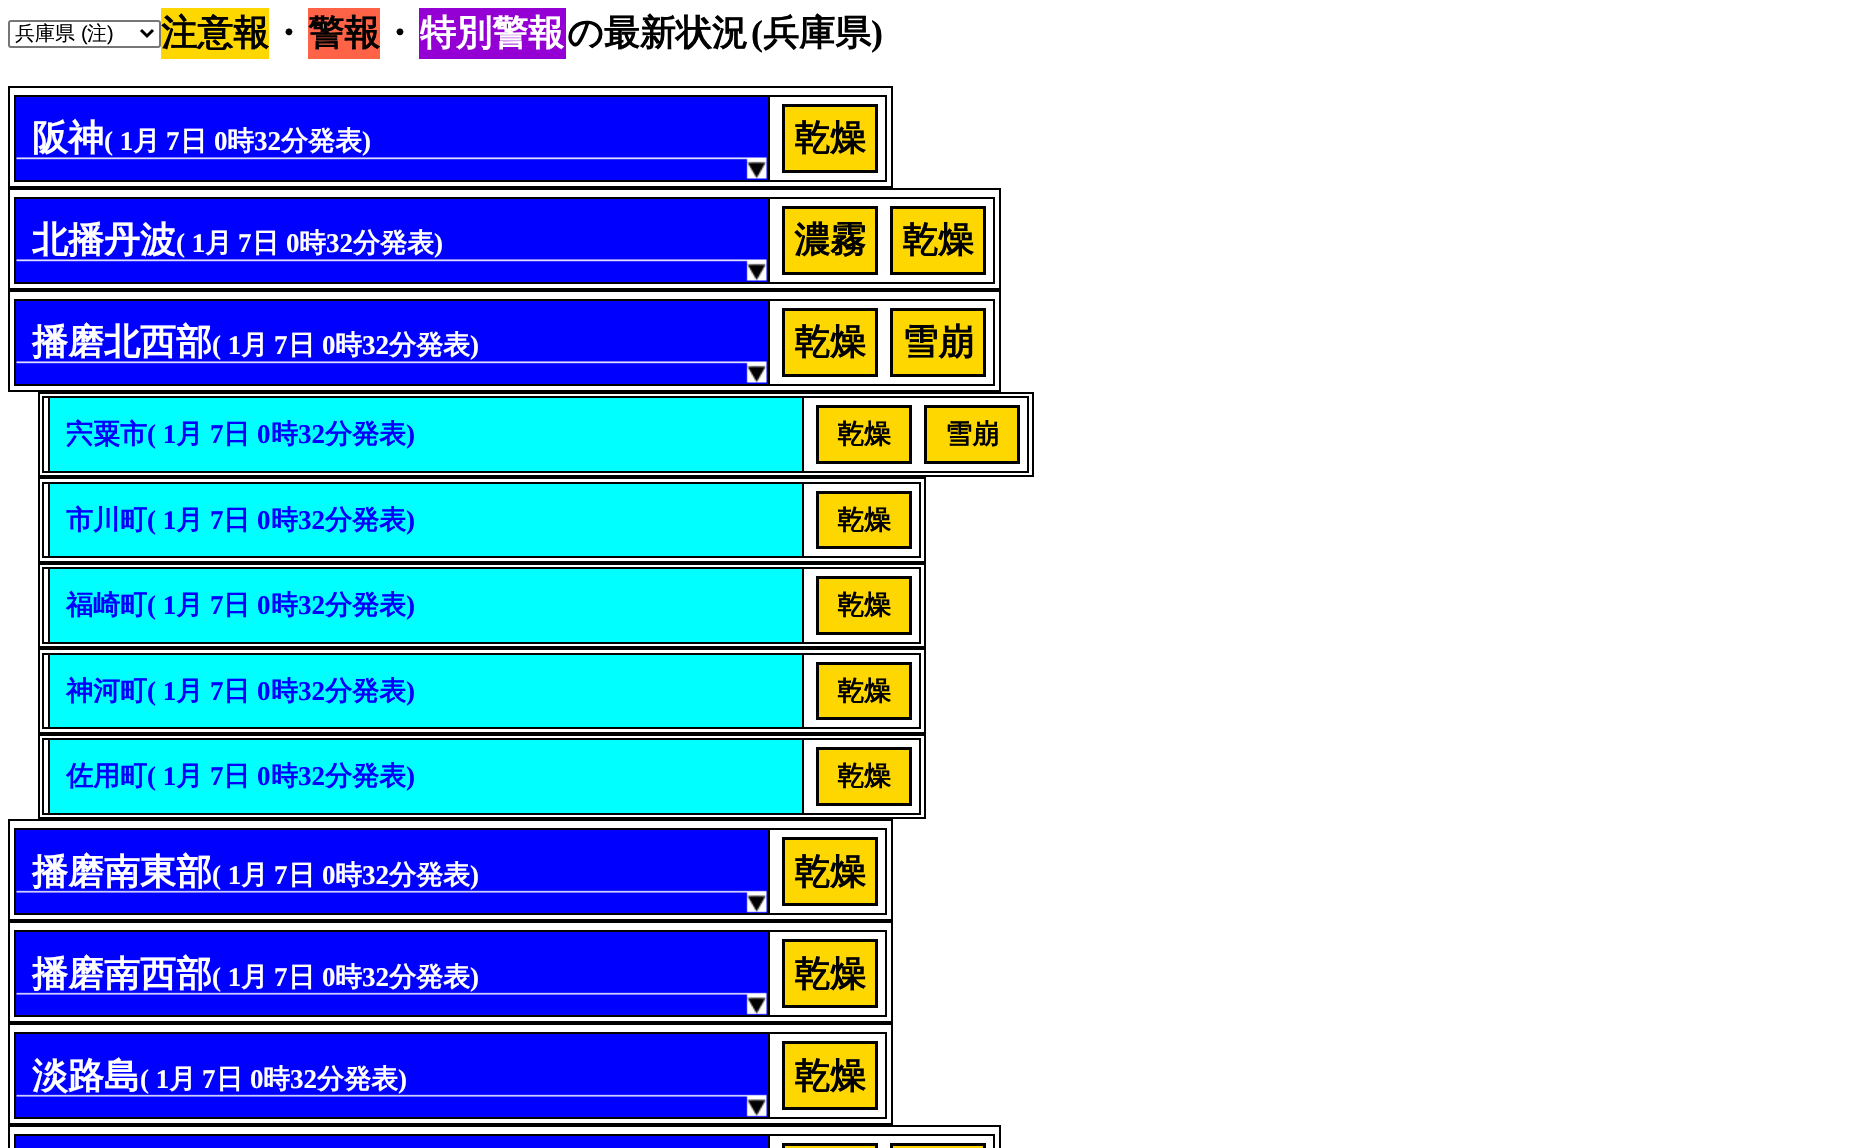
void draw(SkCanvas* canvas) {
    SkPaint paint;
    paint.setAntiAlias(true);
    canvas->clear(0xFFFFFFFF);
    paint.setStyle(SkPaint::kStroke_Style);
    paint.setStrokeWidth(2);
    paint.setColor(0xFF767676);
    canvas->drawRoundRect(SkRect::MakeXYWH(9, 21, 151, 26), 2, 2, paint);
    paint.setStrokeWidth(3);
    paint.setColor(0xFF000000);
    canvas->drawPath(SkPathBuilder().moveTo(141, 30).lineTo(147, 36).lineTo(153, 30).detach(), paint);
    SkFont font1(fontMgr->matchFamilyStyle("WenQuanYi Zen Hei", SkFontStyle(500, SkFontStyle::kNormal_Width, SkFontStyle::kUpright_Slant)), 20);
    font1.setSubpixel(true);
    paint.setStyle(SkPaint::kFill_Style);
    canvas->drawString("兵庫県", 15, 40, font1, paint);
    SkFont font2(fontMgr->matchFamilyStyle("Liberation Sans", SkFontStyle::Normal()), 20);
    font2.setSubpixel(true);
    canvas->drawString("(", 81, 40, font2, paint);
    canvas->drawString("注", 87, 40, font1, paint);
    canvas->drawString(")", 107, 40, font2, paint);
    paint.setColor(0xFFFFD700);
    canvas->drawRect(SkRect::MakeXYWH(161, 8, 108, 51), paint);
    SkFont font3(fontMgr->matchFamilyStyle("WenQuanYi Zen Hei", SkFontStyle::Bold()), 36);
    font3.setSubpixel(true);
    paint.setColor(0xFF000000);
    canvas->drawString("注意報", 161, 45, font3, paint);
    canvas->drawString("・", 270, 45, font3, paint);
    paint.setColor(0xFFFF6347);
    canvas->drawRect(SkRect::MakeXYWH(308, 8, 72, 51), paint);
    paint.setColor(0xFF000000);
    canvas->drawString("警報", 308, 45, font3, paint);
    canvas->drawString("・", 381, 45, font3, paint);
    paint.setColor(0xFF9400D3);
    canvas->drawRect(SkRect::MakeXYWH(419, 8, 147, 51), paint);
    paint.setColor(0xFFFFFFFF);
    canvas->drawString("特別警報", 420, 45, font3, paint);
    paint.setColor(0xFF000000);
    canvas->drawString("の最新状況", 567, 45, font3, paint);
    SkFont font4(fontMgr->matchFamilyStyle("Liberation Serif", SkFontStyle::Bold()), 36);
    font4.setSubpixel(true);
    canvas->drawString("(", 751, 45, font4, paint);
    canvas->drawString("兵庫県", 763, 45, font3, paint);
    canvas->drawString(")", 871, 45, font4, paint);
    paint.setStyle(SkPaint::kStroke_Style);
    paint.setStrokeWidth(2);
    canvas->drawRect(SkRect::MakeXYWH(9, 87, 883, 100), paint);
    canvas->drawRect(SkRect::MakeXYWH(15, 96, 871, 85), paint);
    paint.setStyle(SkPaint::kFill_Style);
    paint.setColor(0xFF0000FF);
    canvas->drawRect(SkRect::MakeXYWH(16, 97, 752, 83), paint);
    canvas->drawImageRect(SkImages::DeferredFromEncodedData(SkData::MakeFromFileName("img1.png")), SkRect::MakeXYWH(16, 157, 751, 22), SkSamplingOptions());
    paint.setStyle(SkPaint::kStroke_Style);
    paint.setColor(0xFF000000);
    canvas->drawRect(SkRect::MakeXYWH(15, 96, 754, 85), paint);
    paint.setStyle(SkPaint::kFill_Style);
    paint.setColor(0xFFFFFFFF);
    canvas->drawString("阪神", 32, 150, font3, paint);
    SkFont font5(fontMgr->matchFamilyStyle("Liberation Serif", SkFontStyle::Bold()), 27);
    font5.setSubpixel(true);
    canvas->drawString("( 1", 104, 150, font5, paint);
    SkFont font6(fontMgr->matchFamilyStyle("WenQuanYi Zen Hei", SkFontStyle::Bold()), 27);
    font6.setSubpixel(true);
    canvas->drawString("月", 133, 150, font6, paint);
    canvas->drawString("7", 166, 150, font5, paint);
    canvas->drawString("日", 180, 150, font6, paint);
    canvas->drawString("0", 214, 150, font5, paint);
    canvas->drawString("時", 227, 150, font6, paint);
    canvas->drawString("32", 254, 150, font5, paint);
    canvas->drawString("分発表", 281, 150, font6, paint);
    canvas->drawString(")", 362, 150, font5, paint);
    paint.setColor(0xFFFFD700);
    canvas->drawRect(SkRect::MakeXYWH(783.5f, 105.5f, 93, 66), paint);
    paint.setStyle(SkPaint::kStroke_Style);
    paint.setStrokeWidth(3);
    paint.setColor(0xFF000000);
    canvas->drawRect(SkRect::MakeXYWH(783.5f, 105.5f, 93, 66), paint);
    paint.setStyle(SkPaint::kFill_Style);
    canvas->drawString("乾燥", 794, 150, font3, paint);
    paint.setStyle(SkPaint::kStroke_Style);
    paint.setStrokeWidth(2);
    canvas->drawRect(SkRect::MakeXYWH(9, 189, 991, 100), paint);
    canvas->drawRect(SkRect::MakeXYWH(15, 198, 979, 85), paint);
    paint.setStyle(SkPaint::kFill_Style);
    paint.setColor(0xFF0000FF);
    canvas->drawRect(SkRect::MakeXYWH(16, 199, 752, 83), paint);
    canvas->drawImageRect(SkImages::DeferredFromEncodedData(SkData::MakeFromFileName("img1.png")), SkRect::MakeXYWH(16, 259, 751, 22), SkSamplingOptions());
    paint.setStyle(SkPaint::kStroke_Style);
    paint.setColor(0xFF000000);
    canvas->drawRect(SkRect::MakeXYWH(15, 198, 754, 85), paint);
    paint.setStyle(SkPaint::kFill_Style);
    paint.setColor(0xFFFFFFFF);
    canvas->drawString("北播丹波", 32, 252, font3, paint);
    canvas->drawString("( 1", 176, 252, font5, paint);
    canvas->drawString("月", 205, 252, font6, paint);
    canvas->drawString("7", 238, 252, font5, paint);
    canvas->drawString("日", 252, 252, font6, paint);
    canvas->drawString("0", 286, 252, font5, paint);
    canvas->drawString("時", 299, 252, font6, paint);
    canvas->drawString("32", 326, 252, font5, paint);
    canvas->drawString("分発表", 353, 252, font6, paint);
    canvas->drawString(")", 434, 252, font5, paint);
    paint.setColor(0xFFFFD700);
    canvas->drawRect(SkRect::MakeXYWH(783.5f, 207.5f, 93, 66), paint);
    paint.setStyle(SkPaint::kStroke_Style);
    paint.setStrokeWidth(3);
    paint.setColor(0xFF000000);
    canvas->drawRect(SkRect::MakeXYWH(783.5f, 207.5f, 93, 66), paint);
    paint.setStyle(SkPaint::kFill_Style);
    canvas->drawString("濃霧", 794, 252, font3, paint);
    paint.setColor(0xFFFFD700);
    canvas->drawRect(SkRect::MakeXYWH(891.5f, 207.5f, 93, 66), paint);
    paint.setStyle(SkPaint::kStroke_Style);
    paint.setColor(0xFF000000);
    canvas->drawRect(SkRect::MakeXYWH(891.5f, 207.5f, 93, 66), paint);
    paint.setStyle(SkPaint::kFill_Style);
    canvas->drawString("乾燥", 902, 252, font3, paint);
    paint.setStyle(SkPaint::kStroke_Style);
    paint.setStrokeWidth(2);
    canvas->drawRect(SkRect::MakeXYWH(9, 291, 991, 100), paint);
    canvas->drawRect(SkRect::MakeXYWH(15, 300, 979, 85), paint);
    paint.setStyle(SkPaint::kFill_Style);
    paint.setColor(0xFF0000FF);
    canvas->drawRect(SkRect::MakeXYWH(16, 301, 752, 83), paint);
    canvas->drawImageRect(SkImages::DeferredFromEncodedData(SkData::MakeFromFileName("img1.png")), SkRect::MakeXYWH(16, 361, 751, 22), SkSamplingOptions());
    paint.setStyle(SkPaint::kStroke_Style);
    paint.setColor(0xFF000000);
    canvas->drawRect(SkRect::MakeXYWH(15, 300, 754, 85), paint);
    paint.setStyle(SkPaint::kFill_Style);
    paint.setColor(0xFFFFFFFF);
    canvas->drawString("播磨北西部", 32, 354, font3, paint);
    canvas->drawString("( 1", 212, 354, font5, paint);
    canvas->drawString("月", 241, 354, font6, paint);
    canvas->drawString("7", 274, 354, font5, paint);
    canvas->drawString("日", 288, 354, font6, paint);
    canvas->drawString("0", 322, 354, font5, paint);
    canvas->drawString("時", 335, 354, font6, paint);
    canvas->drawString("32", 362, 354, font5, paint);
    canvas->drawString("分発表", 389, 354, font6, paint);
    canvas->drawString(")", 470, 354, font5, paint);
    paint.setColor(0xFFFFD700);
    canvas->drawRect(SkRect::MakeXYWH(783.5f, 309.5f, 93, 66), paint);
    paint.setStyle(SkPaint::kStroke_Style);
    paint.setStrokeWidth(3);
    paint.setColor(0xFF000000);
    canvas->drawRect(SkRect::MakeXYWH(783.5f, 309.5f, 93, 66), paint);
    paint.setStyle(SkPaint::kFill_Style);
    canvas->drawString("乾燥", 794, 354, font3, paint);
    paint.setColor(0xFFFFD700);
    canvas->drawRect(SkRect::MakeXYWH(891.5f, 309.5f, 93, 66), paint);
    paint.setStyle(SkPaint::kStroke_Style);
    paint.setColor(0xFF000000);
    canvas->drawRect(SkRect::MakeXYWH(891.5f, 309.5f, 93, 66), paint);
    paint.setStyle(SkPaint::kFill_Style);
    canvas->drawString("雪崩", 902, 354, font3, paint);
    paint.setStyle(SkPaint::kStroke_Style);
    paint.setStrokeWidth(2);
    canvas->drawRect(SkRect::MakeXYWH(39, 393, 994, 83), paint);
    canvas->drawRect(SkRect::MakeXYWH(43, 397, 985, 75), paint);
    paint.setStyle(SkPaint::kFill_Style);
    paint.setColor(0xFF00FFFF);
    canvas->drawRect(SkRect::MakeXYWH(49, 397, 754, 75), paint);
    paint.setStyle(SkPaint::kStroke_Style);
    paint.setColor(0xFF000000);
    canvas->drawRect(SkRect::MakeXYWH(49, 397, 754, 75), paint);
    paint.setStyle(SkPaint::kFill_Style);
    paint.setColor(0xFF0000FF);
    canvas->drawString("宍粟市", 66, 443, font6, paint);
    canvas->drawString("( 1", 147, 443, font5, paint);
    canvas->drawString("月", 176, 443, font6, paint);
    canvas->drawString("7", 210, 443, font5, paint);
    canvas->drawString("日", 223, 443, font6, paint);
    canvas->drawString("0", 257, 443, font5, paint);
    canvas->drawString("時", 271, 443, font6, paint);
    canvas->drawString("32", 298, 443, font5, paint);
    canvas->drawString("分発表", 325, 443, font6, paint);
    canvas->drawString(")", 406, 443, font5, paint);
    paint.setColor(0xFFFFD700);
    canvas->drawRect(SkRect::MakeXYWH(817.5f, 406.5f, 93, 56), paint);
    paint.setStyle(SkPaint::kStroke_Style);
    paint.setStrokeWidth(3);
    paint.setColor(0xFF000000);
    canvas->drawRect(SkRect::MakeXYWH(817.5f, 406.5f, 93, 56), paint);
    paint.setStyle(SkPaint::kFill_Style);
    canvas->drawString("乾燥", 837, 443, font6, paint);
    paint.setColor(0xFFFFD700);
    canvas->drawRect(SkRect::MakeXYWH(925.5f, 406.5f, 93, 56), paint);
    paint.setStyle(SkPaint::kStroke_Style);
    paint.setColor(0xFF000000);
    canvas->drawRect(SkRect::MakeXYWH(925.5f, 406.5f, 93, 56), paint);
    paint.setStyle(SkPaint::kFill_Style);
    canvas->drawString("雪崩", 945, 443, font6, paint);
    paint.setStyle(SkPaint::kStroke_Style);
    paint.setStrokeWidth(2);
    canvas->drawRect(SkRect::MakeXYWH(39, 478, 886, 84), paint);
    canvas->drawRect(SkRect::MakeXYWH(43, 483, 877, 74), paint);
    paint.setStyle(SkPaint::kFill_Style);
    paint.setColor(0xFF00FFFF);
    canvas->drawRect(SkRect::MakeXYWH(49, 483, 754, 74), paint);
    paint.setStyle(SkPaint::kStroke_Style);
    paint.setColor(0xFF000000);
    canvas->drawRect(SkRect::MakeXYWH(49, 483, 754, 74), paint);
    paint.setStyle(SkPaint::kFill_Style);
    paint.setColor(0xFF0000FF);
    canvas->drawString("市川町", 66, 529, font6, paint);
    canvas->drawString("( 1", 147, 529, font5, paint);
    canvas->drawString("月", 176, 529, font6, paint);
    canvas->drawString("7", 210, 529, font5, paint);
    canvas->drawString("日", 223, 529, font6, paint);
    canvas->drawString("0", 257, 529, font5, paint);
    canvas->drawString("時", 271, 529, font6, paint);
    canvas->drawString("32", 298, 529, font5, paint);
    canvas->drawString("分発表", 325, 529, font6, paint);
    canvas->drawString(")", 406, 529, font5, paint);
    paint.setColor(0xFFFFD700);
    canvas->drawRect(SkRect::MakeXYWH(817.5f, 492.5f, 93, 55), paint);
    paint.setStyle(SkPaint::kStroke_Style);
    paint.setStrokeWidth(3);
    paint.setColor(0xFF000000);
    canvas->drawRect(SkRect::MakeXYWH(817.5f, 492.5f, 93, 55), paint);
    paint.setStyle(SkPaint::kFill_Style);
    canvas->drawString("乾燥", 837, 529, font6, paint);
    paint.setStyle(SkPaint::kStroke_Style);
    paint.setStrokeWidth(2);
    canvas->drawRect(SkRect::MakeXYWH(39, 564, 886, 83), paint);
    canvas->drawRect(SkRect::MakeXYWH(43, 568, 877, 75), paint);
    paint.setStyle(SkPaint::kFill_Style);
    paint.setColor(0xFF00FFFF);
    canvas->drawRect(SkRect::MakeXYWH(49, 568, 754, 75), paint);
    paint.setStyle(SkPaint::kStroke_Style);
    paint.setColor(0xFF000000);
    canvas->drawRect(SkRect::MakeXYWH(49, 568, 754, 75), paint);
    paint.setStyle(SkPaint::kFill_Style);
    paint.setColor(0xFF0000FF);
    canvas->drawString("福崎町", 66, 614, font6, paint);
    canvas->drawString("( 1", 147, 614, font5, paint);
    canvas->drawString("月", 176, 614, font6, paint);
    canvas->drawString("7", 210, 614, font5, paint);
    canvas->drawString("日", 223, 614, font6, paint);
    canvas->drawString("0", 257, 614, font5, paint);
    canvas->drawString("時", 271, 614, font6, paint);
    canvas->drawString("32", 298, 614, font5, paint);
    canvas->drawString("分発表", 325, 614, font6, paint);
    canvas->drawString(")", 406, 614, font5, paint);
    paint.setColor(0xFFFFD700);
    canvas->drawRect(SkRect::MakeXYWH(817.5f, 577.5f, 93, 56), paint);
    paint.setStyle(SkPaint::kStroke_Style);
    paint.setStrokeWidth(3);
    paint.setColor(0xFF000000);
    canvas->drawRect(SkRect::MakeXYWH(817.5f, 577.5f, 93, 56), paint);
    paint.setStyle(SkPaint::kFill_Style);
    canvas->drawString("乾燥", 837, 614, font6, paint);
    paint.setStyle(SkPaint::kStroke_Style);
    paint.setStrokeWidth(2);
    canvas->drawRect(SkRect::MakeXYWH(39, 649, 886, 84), paint);
    canvas->drawRect(SkRect::MakeXYWH(43, 654, 877, 74), paint);
    paint.setStyle(SkPaint::kFill_Style);
    paint.setColor(0xFF00FFFF);
    canvas->drawRect(SkRect::MakeXYWH(49, 654, 754, 74), paint);
    paint.setStyle(SkPaint::kStroke_Style);
    paint.setColor(0xFF000000);
    canvas->drawRect(SkRect::MakeXYWH(49, 654, 754, 74), paint);
    paint.setStyle(SkPaint::kFill_Style);
    paint.setColor(0xFF0000FF);
    canvas->drawString("神河町", 66, 700, font6, paint);
    canvas->drawString("( 1", 147, 700, font5, paint);
    canvas->drawString("月", 176, 700, font6, paint);
    canvas->drawString("7", 210, 700, font5, paint);
    canvas->drawString("日", 223, 700, font6, paint);
    canvas->drawString("0", 257, 700, font5, paint);
    canvas->drawString("時", 271, 700, font6, paint);
    canvas->drawString("32", 298, 700, font5, paint);
    canvas->drawString("分発表", 325, 700, font6, paint);
    canvas->drawString(")", 406, 700, font5, paint);
    paint.setColor(0xFFFFD700);
    canvas->drawRect(SkRect::MakeXYWH(817.5f, 663.5f, 93, 55), paint);
    paint.setStyle(SkPaint::kStroke_Style);
    paint.setStrokeWidth(3);
    paint.setColor(0xFF000000);
    canvas->drawRect(SkRect::MakeXYWH(817.5f, 663.5f, 93, 55), paint);
    paint.setStyle(SkPaint::kFill_Style);
    canvas->drawString("乾燥", 837, 700, font6, paint);
    paint.setStyle(SkPaint::kStroke_Style);
    paint.setStrokeWidth(2);
    canvas->drawRect(SkRect::MakeXYWH(39, 735, 886, 83), paint);
    canvas->drawRect(SkRect::MakeXYWH(43, 739, 877, 75), paint);
    paint.setStyle(SkPaint::kFill_Style);
    paint.setColor(0xFF00FFFF);
    canvas->drawRect(SkRect::MakeXYWH(49, 739, 754, 75), paint);
    paint.setStyle(SkPaint::kStroke_Style);
    paint.setColor(0xFF000000);
    canvas->drawRect(SkRect::MakeXYWH(49, 739, 754, 75), paint);
    paint.setStyle(SkPaint::kFill_Style);
    paint.setColor(0xFF0000FF);
    canvas->drawString("佐用町", 66, 785, font6, paint);
    canvas->drawString("( 1", 147, 785, font5, paint);
    canvas->drawString("月", 176, 785, font6, paint);
    canvas->drawString("7", 210, 785, font5, paint);
    canvas->drawString("日", 223, 785, font6, paint);
    canvas->drawString("0", 257, 785, font5, paint);
    canvas->drawString("時", 271, 785, font6, paint);
    canvas->drawString("32", 298, 785, font5, paint);
    canvas->drawString("分発表", 325, 785, font6, paint);
    canvas->drawString(")", 406, 785, font5, paint);
    paint.setColor(0xFFFFD700);
    canvas->drawRect(SkRect::MakeXYWH(817.5f, 748.5f, 93, 56), paint);
    paint.setStyle(SkPaint::kStroke_Style);
    paint.setStrokeWidth(3);
    paint.setColor(0xFF000000);
    canvas->drawRect(SkRect::MakeXYWH(817.5f, 748.5f, 93, 56), paint);
    paint.setStyle(SkPaint::kFill_Style);
    canvas->drawString("乾燥", 837, 785, font6, paint);
    paint.setStyle(SkPaint::kStroke_Style);
    paint.setStrokeWidth(2);
    canvas->drawRect(SkRect::MakeXYWH(9, 820, 883, 100), paint);
    canvas->drawRect(SkRect::MakeXYWH(15, 829, 871, 85), paint);
    paint.setStyle(SkPaint::kFill_Style);
    paint.setColor(0xFF0000FF);
    canvas->drawRect(SkRect::MakeXYWH(16, 830, 752, 83), paint);
    canvas->drawImageRect(SkImages::DeferredFromEncodedData(SkData::MakeFromFileName("img2.png")), SkRect::MakeXYWH(16, 890, 751, 23), SkSamplingOptions());
    paint.setStyle(SkPaint::kStroke_Style);
    paint.setColor(0xFF000000);
    canvas->drawRect(SkRect::MakeXYWH(15, 829, 754, 85), paint);
    paint.setStyle(SkPaint::kFill_Style);
    paint.setColor(0xFFFFFFFF);
    canvas->drawString("播磨南東部", 32, 884, font3, paint);
    canvas->drawString("( 1", 212, 884, font5, paint);
    canvas->drawString("月", 241, 884, font6, paint);
    canvas->drawString("7", 274, 884, font5, paint);
    canvas->drawString("日", 288, 884, font6, paint);
    canvas->drawString("0", 322, 884, font5, paint);
    canvas->drawString("時", 335, 884, font6, paint);
    canvas->drawString("32", 362, 884, font5, paint);
    canvas->drawString("分発表", 389, 884, font6, paint);
    canvas->drawString(")", 470, 884, font5, paint);
    paint.setColor(0xFFFFD700);
    canvas->drawRect(SkRect::MakeXYWH(783.5f, 838.5f, 93, 66), paint);
    paint.setStyle(SkPaint::kStroke_Style);
    paint.setStrokeWidth(3);
    paint.setColor(0xFF000000);
    canvas->drawRect(SkRect::MakeXYWH(783.5f, 838.5f, 93, 66), paint);
    paint.setStyle(SkPaint::kFill_Style);
    canvas->drawString("乾燥", 794, 884, font3, paint);
    paint.setStyle(SkPaint::kStroke_Style);
    paint.setStrokeWidth(2);
    canvas->drawRect(SkRect::MakeXYWH(9, 922, 883, 100), paint);
    canvas->drawRect(SkRect::MakeXYWH(15, 931, 871, 85), paint);
    paint.setStyle(SkPaint::kFill_Style);
    paint.setColor(0xFF0000FF);
    canvas->drawRect(SkRect::MakeXYWH(16, 932, 752, 83), paint);
    canvas->drawImageRect(SkImages::DeferredFromEncodedData(SkData::MakeFromFileName("img2.png")), SkRect::MakeXYWH(16, 992, 751, 23), SkSamplingOptions());
    paint.setStyle(SkPaint::kStroke_Style);
    paint.setColor(0xFF000000);
    canvas->drawRect(SkRect::MakeXYWH(15, 931, 754, 85), paint);
    paint.setStyle(SkPaint::kFill_Style);
    paint.setColor(0xFFFFFFFF);
    canvas->drawString("播磨南西部", 32, 986, font3, paint);
    canvas->drawString("( 1", 212, 986, font5, paint);
    canvas->drawString("月", 241, 986, font6, paint);
    canvas->drawString("7", 274, 986, font5, paint);
    canvas->drawString("日", 288, 986, font6, paint);
    canvas->drawString("0", 322, 986, font5, paint);
    canvas->drawString("時", 335, 986, font6, paint);
    canvas->drawString("32", 362, 986, font5, paint);
    canvas->drawString("分発表", 389, 986, font6, paint);
    canvas->drawString(")", 470, 986, font5, paint);
    paint.setColor(0xFFFFD700);
    canvas->drawRect(SkRect::MakeXYWH(783.5f, 940.5f, 93, 66), paint);
    paint.setStyle(SkPaint::kStroke_Style);
    paint.setStrokeWidth(3);
    paint.setColor(0xFF000000);
    canvas->drawRect(SkRect::MakeXYWH(783.5f, 940.5f, 93, 66), paint);
    paint.setStyle(SkPaint::kFill_Style);
    canvas->drawString("乾燥", 794, 986, font3, paint);
    paint.setStyle(SkPaint::kStroke_Style);
    paint.setStrokeWidth(2);
    canvas->drawRect(SkRect::MakeXYWH(9, 1024, 883, 100), paint);
    canvas->drawRect(SkRect::MakeXYWH(15, 1033, 871, 85), paint);
    paint.setStyle(SkPaint::kFill_Style);
    paint.setColor(0xFF0000FF);
    canvas->drawRect(SkRect::MakeXYWH(16, 1034, 752, 83), paint);
    canvas->drawImageRect(SkImages::DeferredFromEncodedData(SkData::MakeFromFileName("img2.png")), SkRect::MakeXYWH(16, 1094, 751, 23), SkSamplingOptions());
    paint.setStyle(SkPaint::kStroke_Style);
    paint.setColor(0xFF000000);
    canvas->drawRect(SkRect::MakeXYWH(15, 1033, 754, 85), paint);
    paint.setStyle(SkPaint::kFill_Style);
    paint.setColor(0xFFFFFFFF);
    canvas->drawString("淡路島", 32, 1088, font3, paint);
    canvas->drawString("( 1", 140, 1088, font5, paint);
    canvas->drawString("月", 169, 1088, font6, paint);
    canvas->drawString("7", 202, 1088, font5, paint);
    canvas->drawString("日", 216, 1088, font6, paint);
    canvas->drawString("0", 250, 1088, font5, paint);
    canvas->drawString("時", 263, 1088, font6, paint);
    canvas->drawString("32", 290, 1088, font5, paint);
    canvas->drawString("分発表", 317, 1088, font6, paint);
    canvas->drawString(")", 398, 1088, font5, paint);
    paint.setColor(0xFFFFD700);
    canvas->drawRect(SkRect::MakeXYWH(783.5f, 1042.5f, 93, 66), paint);
    paint.setStyle(SkPaint::kStroke_Style);
    paint.setStrokeWidth(3);
    paint.setColor(0xFF000000);
    canvas->drawRect(SkRect::MakeXYWH(783.5f, 1042.5f, 93, 66), paint);
    paint.setStyle(SkPaint::kFill_Style);
    canvas->drawString("乾燥", 794, 1088, font3, paint);
    paint.setStyle(SkPaint::kStroke_Style);
    paint.setStrokeWidth(2);
    canvas->drawRect(SkRect::MakeXYWH(9, 1126, 991, 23), paint);
    canvas->drawRect(SkRect::MakeXYWH(15, 1135, 979, 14), paint);
    paint.setStyle(SkPaint::kFill_Style);
    paint.setColor(0xFF0000FF);
    canvas->drawRect(SkRect::MakeXYWH(15, 1135, 754, 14), paint);
    paint.setStyle(SkPaint::kStroke_Style);
    paint.setColor(0xFF000000);
    canvas->drawRect(SkRect::MakeXYWH(15, 1135, 754, 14), paint);
    paint.setStyle(SkPaint::kFill_Style);
    paint.setColor(0xFFFFD700);
    canvas->drawRect(SkRect::MakeXYWH(783.5f, 1144.5f, 93, 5), paint);
    paint.setStyle(SkPaint::kStroke_Style);
    paint.setStrokeWidth(3);
    paint.setColor(0xFF000000);
    canvas->drawRect(SkRect::MakeXYWH(783.5f, 1144.5f, 93, 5), paint);
    paint.setStyle(SkPaint::kFill_Style);
    paint.setColor(0xFFFFD700);
    canvas->drawRect(SkRect::MakeXYWH(891.5f, 1144.5f, 93, 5), paint);
    paint.setStyle(SkPaint::kStroke_Style);
    paint.setColor(0xFF000000);
    canvas->drawRect(SkRect::MakeXYWH(891.5f, 1144.5f, 93, 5), paint);
}
